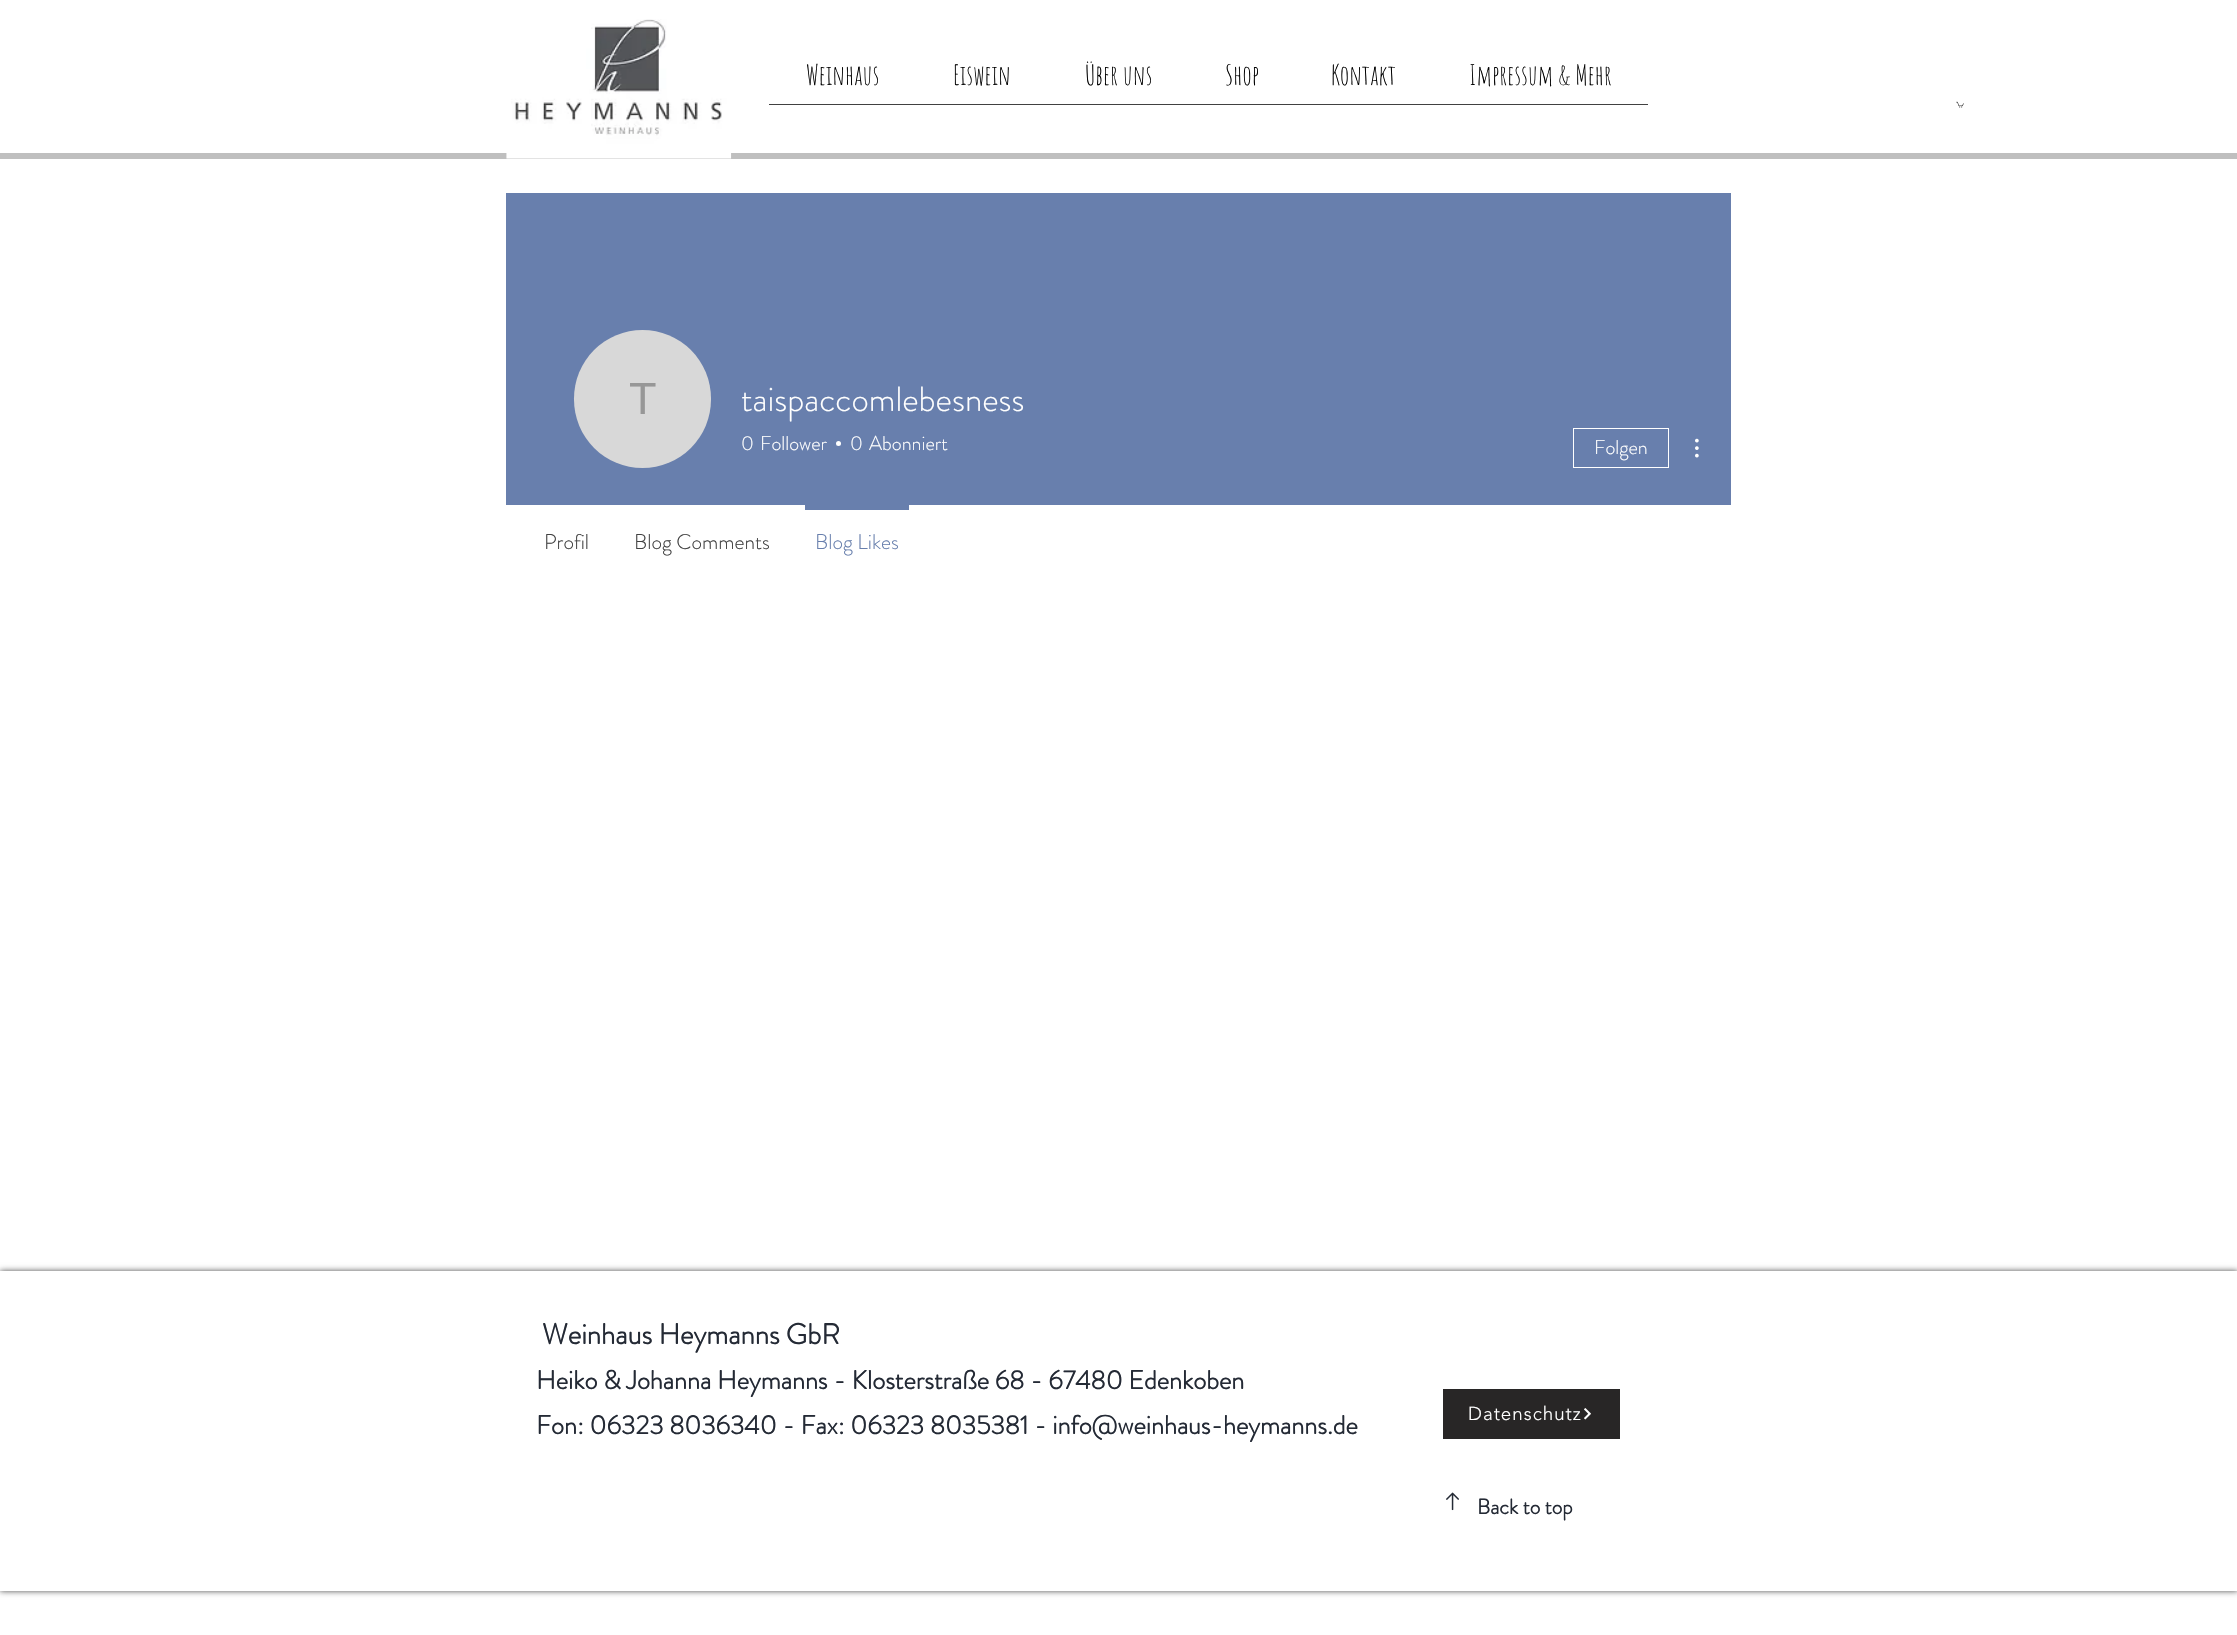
void draw(SkCanvas* canvas) {
    SkPaint paint;
    paint.setAntiAlias(true);
    auto spacedText = [&](const char* s, float x, float y, const SkFont& font, const SkPaint& ink, float letter, float word) {
        std::vector<SkGlyphID> glyphs(font.countText(s, strlen(s), SkTextEncoding::kUTF8));
        std::vector<float> xs(glyphs.size());
        font.textToGlyphs(s, strlen(s), SkTextEncoding::kUTF8, glyphs);
        font.getXPos(glyphs, xs, x);
        float extra = 0;
        for (size_t i = 0; i < glyphs.size(); i++) {
            xs[i] += extra;
            extra += letter + word * (glyphs[i] == font.unicharToGlyph(' '));
        }
        canvas->drawTextBlob(SkTextBlob::MakeFromPosHGlyphs(glyphs, xs, y, font), 0, 0, ink);
    };
    canvas->clear(0xFFFFFFFF);
    paint.setColor(0xFFBFBFBF);
    canvas->drawRect(SkRect::MakeXYWH(0, 153, 2237, 6), paint);
    canvas->drawImageRect(SkImages::DeferredFromEncodedData(SkData::MakeFromFileName("img1.png")), SkRect::MakeXYWH(506, 19, 226, 140), SkSamplingOptions());
    SkFont font1(fontMgr->matchFamilyStyle("Amatic SC", SkFontStyle::Normal()), 27.5f);
    font1.setSubpixel(true);
    paint.setColor(0xFF000000);
    canvas->drawString("Weinhaus", 806, 85, font1, paint);
    canvas->drawString("Eiswein", 953, 85, font1, paint);
    canvas->drawString("Über uns", 1085, 85, font1, paint);
    canvas->drawString("Shop", 1225, 85, font1, paint);
    canvas->drawString("Kontakt", 1331, 85, font1, paint);
    canvas->drawString("Impressum & Mehr", 1469, 85, font1, paint);
    paint.setColor(0xFF414141);
    canvas->drawRect(SkRect::MakeXYWH(769, 104, 879, 1), paint);
    canvas->drawImageRect(SkImages::DeferredFromEncodedData(SkData::MakeFromFileName("img2.png")), SkRect::MakeXYWH(1956, 101, 8, 7), SkSamplingOptions());
    paint.setColor(0xFF687FAD);
    canvas->drawRect(SkRect::MakeXYWH(506, 193, 1225, 312), paint);
    paint.setColor(0xFFD8D8D8);
    canvas->drawRoundRect(SkRect::MakeXYWH(574, 330, 137, 138), 68.5f, 68.5f, paint);
    SkFont font2(fontMgr->matchFamilyStyle("Liberation Sans", SkFontStyle::Normal()), 45);
    font2.setSubpixel(true);
    paint.setColor(0xFF979797);
    canvas->drawString("T", 629, 414, font2, paint);
    SkFont font3(fontMgr->matchFamilyStyle("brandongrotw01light", SkFontStyle(300, SkFontStyle::kNormal_Width, SkFontStyle::kUpright_Slant)), 35);
    font3.setSubpixel(true);
    paint.setColor(0xFFFFFFFF);
    canvas->drawString("taispaccomlebesness", 741, 411, font3, paint);
    SkFont font4(fontMgr->matchFamilyStyle("brandongrotw01light", SkFontStyle(300, SkFontStyle::kNormal_Width, SkFontStyle::kUpright_Slant)), 20);
    font4.setSubpixel(true);
    canvas->drawString("0", 741, 450, font4, paint);
    canvas->drawString("Follower", 760, 450, font4, paint);
    canvas->drawCircle(838.5f, 443.5f, 2.5f, paint);
    canvas->drawString("0", 850, 450, font4, paint);
    canvas->drawString("Abonniert", 869, 450, font4, paint);
    paint.setStyle(SkPaint::kStroke_Style);
    paint.setStrokeWidth(1);
    canvas->drawRect(SkRect::MakeXYWH(1573.5f, 428.5f, 95, 39), paint);
    paint.setStyle(SkPaint::kFill_Style);
    canvas->drawString("Folgen", 1594, 454, font4, paint);
    canvas->drawImageRect(SkImages::DeferredFromEncodedData(SkData::MakeFromFileName("img3.png")), SkRect::MakeXYWH(1695, 438, 4, 20), SkSamplingOptions());
    SkFont font5(fontMgr->matchFamilyStyle("brandongrotw01light", SkFontStyle(300, SkFontStyle::kNormal_Width, SkFontStyle::kUpright_Slant)), 21.25f);
    font5.setSubpixel(true);
    paint.setColor(0xFF414141);
    canvas->drawString("Profil", 544, 549, font5, paint);
    canvas->drawString("Blog Comments", 634, 549, font5, paint);
    paint.setColor(0xFF687FAD);
    canvas->drawRect(SkRect::MakeXYWH(805, 505, 104, 5), paint);
    canvas->drawString("Blog Likes", 815, 549, font5, paint);
    canvas->save();
    canvas->clipPath(SkPathBuilder(SkPathFillType::kEvenOdd).moveTo(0, 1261).lineTo(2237, 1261).lineTo(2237, 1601).lineTo(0, 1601).close().moveTo(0, 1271).lineTo(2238, 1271).lineTo(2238, 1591).lineTo(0, 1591).close().detach(), true);
    paint.setColor(0xB3000000);
    paint.setMaskFilter(SkMaskFilter::MakeBlur(kNormal_SkBlurStyle, 3));
    canvas->drawRect(SkRect::MakeXYWH(0, 1271, 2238, 320), paint);
    paint.setMaskFilter(nullptr);
    canvas->restore();
    paint.setColor(0x99FFFFFF);
    canvas->drawRect(SkRect::MakeXYWH(0, 1271, 2237, 1), paint);
    SkFont font6(fontMgr->matchFamilyStyle("brandongrotw01light", SkFontStyle::Bold()), 28.75f);
    font6.setSubpixel(true);
    paint.setColor(0xFF242A35);
    canvas->drawString("Weinhaus Heymanns GbR", 542, 1344, font6, paint);
    SkFont font7(fontMgr->matchFamilyStyle("brandongrotw01light", SkFontStyle::Bold()), 26.25f);
    font7.setSubpixel(true);
    canvas->drawString("Heiko & Johanna Heymanns - Klosterstraße 68 - 67480 Edenkoben", 536, 1389, font7, paint);
    canvas->drawString("Fon: 06323 8036340 - Fax: 06323 8035381 - info@weinhaus-heymanns.de", 536, 1434, font7, paint);
    paint.setColor(0xFF282626);
    canvas->drawRect(SkRect::MakeXYWH(1443, 1389, 177, 50), paint);
    SkFont font8(fontMgr->matchFamilyStyle("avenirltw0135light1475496", SkFontStyle(300, SkFontStyle::kNormal_Width, SkFontStyle::kUpright_Slant)), 18.75f);
    font8.setSubpixel(true);
    paint.setColor(0xFFFFFFFF);
    spacedText("Datenschutz", 1468, 1420, font8, paint, 1, 0);
    canvas->drawImageRect(SkImages::DeferredFromEncodedData(SkData::MakeFromFileName("img4.png")), SkRect::MakeXYWH(1584, 1408, 7, 12), SkSamplingOptions());
    canvas->drawImageRect(SkImages::DeferredFromEncodedData(SkData::MakeFromFileName("img5.png")), SkRect::MakeXYWH(1446, 1492, 13, 19), SkSamplingOptions());
    SkFont font9(fontMgr->matchFamilyStyle("brandongrotw01light", SkFontStyle::Bold()), 21.25f);
    font9.setSubpixel(true);
    paint.setColor(0xFF242A35);
    canvas->drawString("Back to top", 1477, 1514, font9, paint);
}
